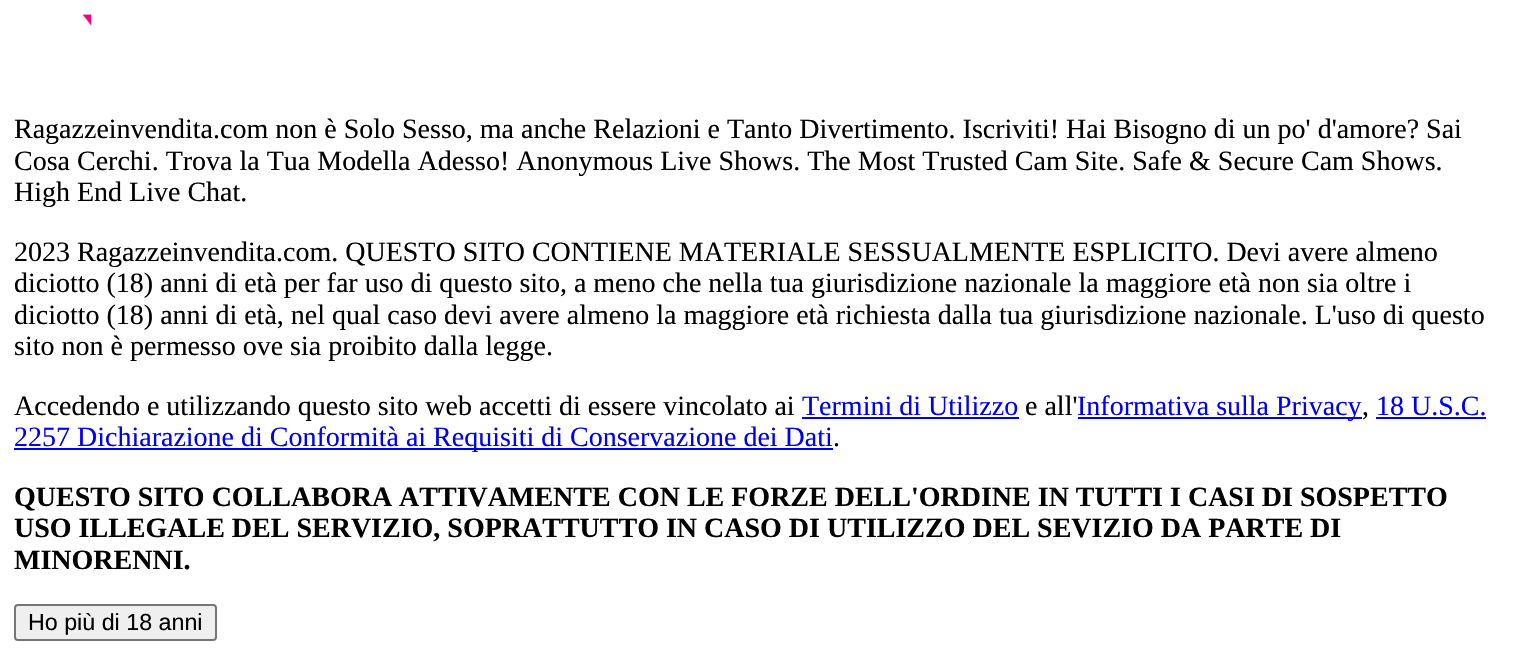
void draw(SkCanvas* canvas) {
    SkPaint paint;
    paint.setAntiAlias(true);
    canvas->clear(0xFFFFFFFF);
    canvas->drawImageRect(SkImages::DeferredFromEncodedData(SkData::MakeFromFileName("img1.png")), SkRect::MakeXYWH(82, 14, 10, 12), SkSamplingOptions());
    SkFont font1(fontMgr->matchFamilyStyle("Liberation Serif", SkFontStyle::Normal()), 28);
    font1.setSubpixel(true);
    paint.setColor(0xFF000000);
    canvas->drawString("Ragazzeinvendita.com non è Solo Sesso, ma anche Relazioni e Tanto Divertimento. Iscriviti! Hai Bisogno di un po' d'amore? Sai", 14, 138, font1, paint);
    canvas->drawString("Cosa Cerchi. Trova la Tua Modella Adesso! Anonymous Live Shows. The Most Trusted Cam Site. Safe & Secure Cam Shows.", 14, 170, font1, paint);
    canvas->drawString("High End Live Chat.", 14, 201, font1, paint);
    canvas->drawString("2023 Ragazzeinvendita.com. QUESTO SITO CONTIENE MATERIALE SESSUALMENTE ESPLICITO. Devi avere almeno", 14, 261, font1, paint);
    canvas->drawString("diciotto (18) anni di età per far uso di questo sito, a meno che nella tua giurisdizione nazionale la maggiore età non sia oltre i", 14, 292, font1, paint);
    canvas->drawString("diciotto (18) anni di età, nel qual caso devi avere almeno la maggiore età richiesta dalla tua giurisdizione nazionale. L'uso di questo", 14, 324, font1, paint);
    canvas->drawString("sito non è permesso ove sia proibito dalla legge.", 14, 355, font1, paint);
    canvas->drawString("Accedendo e utilizzando questo sito web accetti di essere vincolato ai", 14, 415, font1, paint);
    paint.setColor(0xFF0000EE);
    canvas->drawString("Termini di Utilizzo", 802, 415, font1, paint);
    canvas->drawRect(SkRect::MakeXYWH(802, 417, 217, 2), paint);
    paint.setColor(0xFF000000);
    canvas->drawString("e all'", 1025, 415, font1, paint);
    paint.setColor(0xFF0000EE);
    canvas->drawRect(SkRect::MakeXYWH(1078, 417, 284, 2), paint);
    canvas->drawString("Informativa sulla Privacy", 1077, 415, font1, paint);
    paint.setColor(0xFF000000);
    canvas->drawString(",", 1362, 415, font1, paint);
    paint.setColor(0xFF0000EE);
    canvas->drawString("18 U.S.C.", 1376, 415, font1, paint);
    canvas->drawRect(SkRect::MakeXYWH(1376, 417, 110, 2), paint);
    canvas->drawRect(SkRect::MakeXYWH(14, 448, 819, 2), paint);
    canvas->drawString("2257 Dichiarazione di Conformità ai Requisiti di Conservazione dei Dati", 14, 446, font1, paint);
    paint.setColor(0xFF000000);
    canvas->drawString(".", 833, 446, font1, paint);
    SkFont font2(fontMgr->matchFamilyStyle("Liberation Serif", SkFontStyle::Bold()), 28);
    font2.setSubpixel(true);
    canvas->drawString("QUESTO SITO COLLABORA ATTIVAMENTE CON LE FORZE DELL'ORDINE IN TUTTI I CASI DI SOSPETTO", 14, 506, font2, paint);
    canvas->drawString("USO ILLEGALE DEL SERVIZIO, SOPRATTUTTO IN CASO DI UTILIZZO DEL SEVIZIO DA PARTE DI", 14, 537, font2, paint);
    canvas->drawString("MINORENNI.", 14, 569, font2, paint);
    paint.setColor(0xFFEFEFEF);
    canvas->drawRoundRect(SkRect::MakeXYWH(15, 605, 201, 35), 3, 3, paint);
    paint.setStyle(SkPaint::kStroke_Style);
    paint.setStrokeWidth(2);
    paint.setColor(0xFF767676);
    canvas->drawRoundRect(SkRect::MakeXYWH(15, 605, 201, 35), 3, 3, paint);
    SkFont font3(fontMgr->matchFamilyStyle("Liberation Sans", SkFontStyle::Normal()), 23.25f);
    font3.setSubpixel(true);
    paint.setStyle(SkPaint::kFill_Style);
    paint.setColor(0xFF000000);
    canvas->drawString("Ho più di 18 anni", 28, 630, font3, paint);
}
